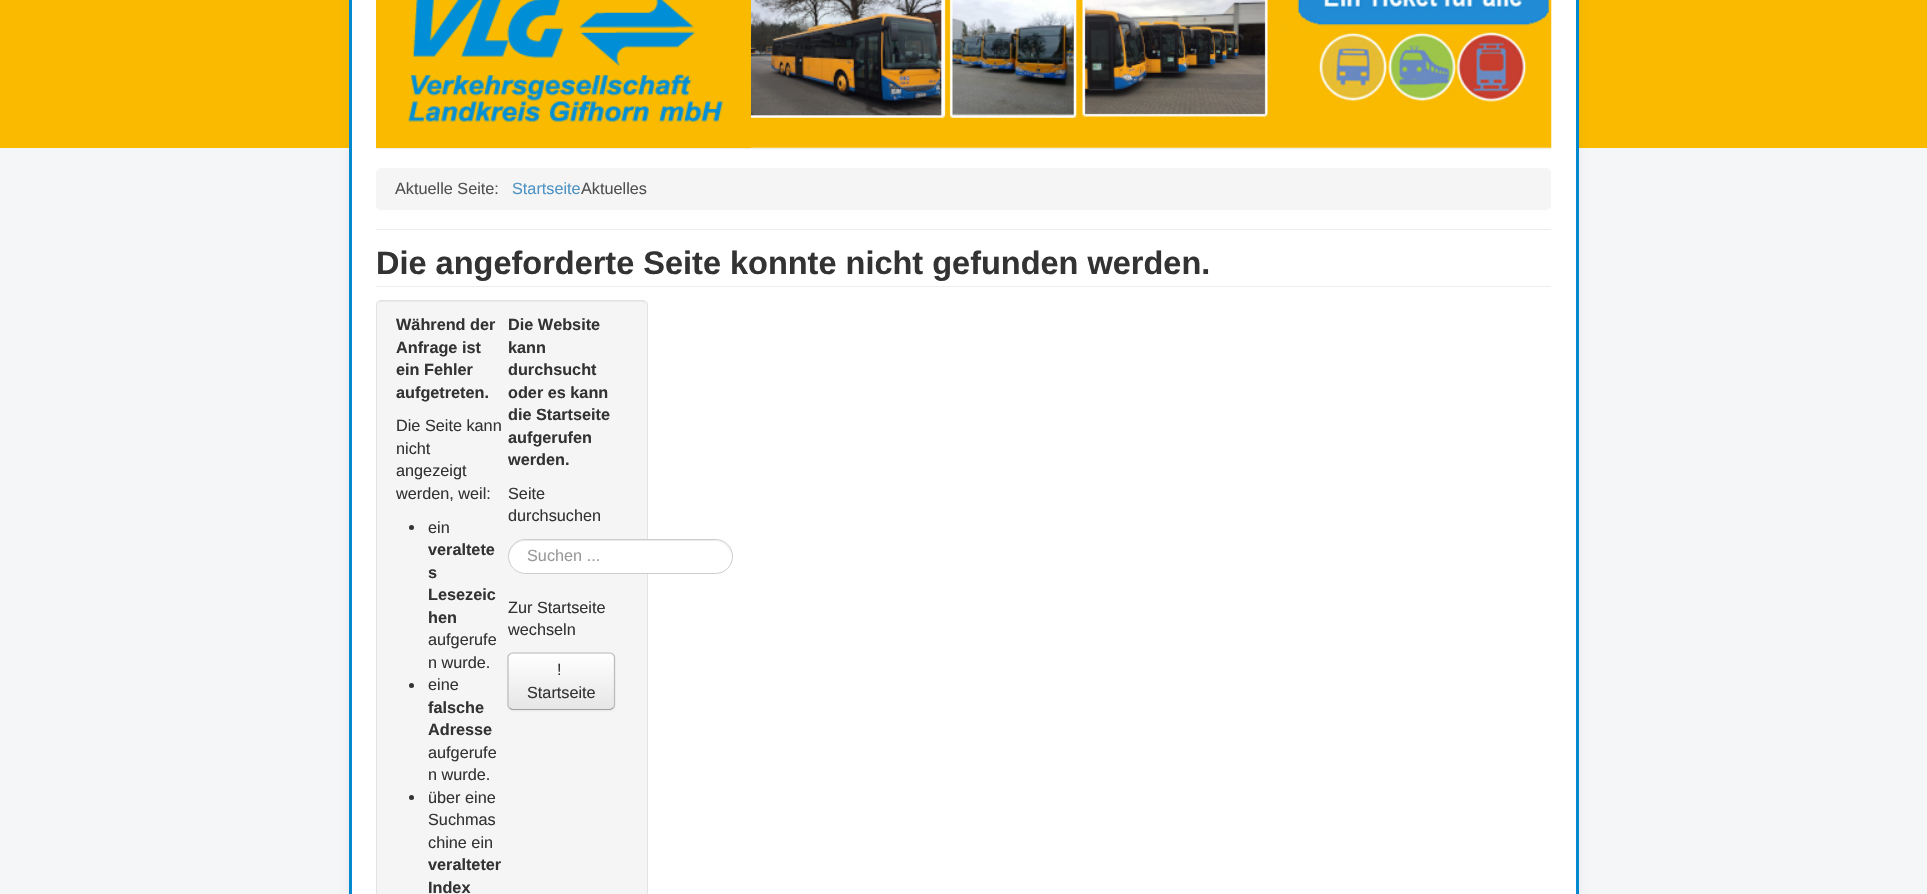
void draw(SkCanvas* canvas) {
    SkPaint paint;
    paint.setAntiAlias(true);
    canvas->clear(0xFFF4F6F7);
    paint.setColor(0xFFFABA00);
    canvas->drawRect(SkRect::MakeXYWH(0, 0, 1927, 148), paint);
    paint.setColor(0x0D000000);
    paint.setMaskFilter(SkMaskFilter::MakeBlur(kNormal_SkBlurStyle, 4));
    canvas->drawRoundRect(SkRect::MakeXYWH(349, -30, 1230, 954), 18, 18, paint);
    paint.setMaskFilter(nullptr);
    paint.setColor(0xFFFFFFFF);
    canvas->drawRect(SkRect::MakeXYWH(350.5f, -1.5f, 1227, 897), paint);
    paint.setStyle(SkPaint::kStroke_Style);
    paint.setStrokeWidth(3);
    paint.setColor(0xFF0089D1);
    canvas->drawRect(SkRect::MakeXYWH(350.5f, -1.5f, 1227, 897), paint);
    canvas->drawImageRect(SkImages::DeferredFromEncodedData(SkData::MakeFromFileName("img1.png")), SkRect::MakeXYWH(751, 0, 801, 148), SkSamplingOptions());
    paint.setStyle(SkPaint::kFill_Style);
    paint.setColor(0xFFFABA00);
    canvas->drawRect(SkRect::MakeXYWH(376, 0, 375, 148), paint);
    canvas->drawImageRect(SkImages::DeferredFromEncodedData(SkData::MakeFromFileName("img2.png")), SkRect::MakeXYWH(408, 0, 315, 122), SkSamplingOptions());
    paint.setColor(0xFFECECEC);
    canvas->drawRect(SkRect::MakeXYWH(376, 148, 1175, 1), paint);
    canvas->drawRect(SkRect::MakeXYWH(376, 229, 1175, 1), paint);
    paint.setColor(0xFFF5F5F5);
    canvas->drawRoundRect(SkRect::MakeXYWH(376, 168, 1175, 42), 5, 5, paint);
    SkFont font1(fontMgr->matchFamilyStyle("Liberation Sans", SkFontStyle::Normal()), 16.25f);
    font1.setSubpixel(true);
    paint.setColor(0xFF515151);
    canvas->drawString("Aktuelle Seite:", 395, 194, font1, paint);
    paint.setColor(0xFF4E93C3);
    canvas->drawString("Startseite", 512, 194, font1, paint);
    paint.setColor(0xFF515151);
    canvas->drawString("Aktuelles", 581, 194, font1, paint);
    paint.setColor(0xFFEEEEEE);
    canvas->drawRect(SkRect::MakeXYWH(376, 286, 1175, 1), paint);
    SkFont font2(fontMgr->matchFamilyStyle("Liberation Sans", SkFontStyle::Bold()), 32.5f);
    font2.setSubpixel(true);
    paint.setColor(0xFF333333);
    canvas->drawString("Die angeforderte Seite konnte nicht gefunden werden.", 376, 274, font2, paint);
    paint.setColor(0xFFF5F5F5);
    canvas->drawRoundRect(SkRect::MakeXYWH(376, 300, 272, 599), 5, 5, paint);
    paint.setColor(0xFFE9E9E9);
    canvas->drawPath(SkPathBuilder().moveTo(381, 302).lineTo(642, 302).cubicTo(645, 302, 646, 304, 646, 306).cubicTo(646, 303, 645, 301, 642, 301).lineTo(382, 301).cubicTo(379, 301, 378, 303, 378, 306).cubicTo(378, 304, 379, 302, 381, 302).close().detach(), paint);
    paint.setStyle(SkPaint::kStroke_Style);
    paint.setStrokeWidth(1);
    paint.setColor(0xFFE3E3E3);
    canvas->drawRoundRect(SkRect::MakeXYWH(376.5f, 300.5f, 271, 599), 4.5f, 4.5f, paint);
    SkFont font3(fontMgr->matchFamilyStyle("Liberation Sans", SkFontStyle::Bold()), 16.25f);
    font3.setSubpixel(true);
    paint.setStyle(SkPaint::kFill_Style);
    paint.setColor(0xFF333333);
    canvas->drawString("Während der", 396, 330, font3, paint);
    canvas->drawString("Anfrage ist", 396, 353, font3, paint);
    canvas->drawString("ein Fehler", 396, 375, font3, paint);
    canvas->drawString("aufgetreten.", 396, 398, font3, paint);
    canvas->drawString("Die Seite kann", 396, 431, font1, paint);
    canvas->drawString("nicht", 396, 454, font1, paint);
    canvas->drawString("angezeigt", 396, 476, font1, paint);
    canvas->drawString("werden, weil:", 396, 499, font1, paint);
    canvas->drawCircle(411.5f, 527.5f, 2.5f, paint);
    canvas->drawString("ein", 428, 533, font1, paint);
    canvas->drawString("veraltete", 428, 555, font3, paint);
    canvas->drawString("s", 428, 578, font3, paint);
    canvas->drawString("Lesezeic", 428, 600, font3, paint);
    canvas->drawString("hen", 428, 623, font3, paint);
    canvas->drawString("aufgerufe", 428, 645, font1, paint);
    canvas->drawString("n wurde.", 428, 668, font1, paint);
    canvas->drawCircle(411.5f, 685.5f, 2.5f, paint);
    canvas->drawString("eine", 428, 690, font1, paint);
    canvas->drawString("falsche", 428, 713, font3, paint);
    canvas->drawString("Adresse", 428, 735, font3, paint);
    canvas->drawString("aufgerufe", 428, 758, font1, paint);
    canvas->drawString("n wurde.", 428, 780, font1, paint);
    canvas->drawCircle(411.5f, 797.5f, 2.5f, paint);
    canvas->drawString("über eine", 428, 803, font1, paint);
    canvas->drawString("Suchmas", 428, 825, font1, paint);
    canvas->drawString("chine ein", 428, 848, font1, paint);
    canvas->drawString("veralteter", 428, 870, font3, paint);
    canvas->drawString("Index", 428, 893, font3, paint);
    canvas->drawString("Die Website", 508, 330, font3, paint);
    canvas->drawString("kann", 508, 353, font3, paint);
    canvas->drawString("durchsucht", 508, 375, font3, paint);
    canvas->drawString("oder es kann", 508, 398, font3, paint);
    canvas->drawString("die Startseite", 508, 420, font3, paint);
    canvas->drawString("aufgerufen", 508, 443, font3, paint);
    canvas->drawString("werden.", 508, 465, font3, paint);
    canvas->drawString("Seite", 508, 499, font1, paint);
    canvas->drawString("durchsuchen", 508, 521, font1, paint);
    paint.setColor(0xFFFFFFFF);
    canvas->drawRoundRect(SkRect::MakeXYWH(508, 539, 225, 35), 17.5f, 17.5f, paint);
    paint.setColor(0xFFECECEC);
    canvas->drawPath(SkPathBuilder().moveTo(525, 541).lineTo(715, 541).cubicTo(724, 541, 731, 549, 731, 557).cubicTo(732, 533, 695, 540, 683, 540).lineTo(557, 540).cubicTo(545, 540, 508, 533, 509, 557).cubicTo(509, 549, 516, 541, 525, 541).close().detach(), paint);
    paint.setStyle(SkPaint::kStroke_Style);
    paint.setColor(0xFFCCCCCC);
    canvas->drawRoundRect(SkRect::MakeXYWH(508.5f, 539.5f, 224, 34), 17, 17, paint);
    paint.setStyle(SkPaint::kFill_Style);
    paint.setColor(0xFF999999);
    canvas->drawString("Suchen ...", 527, 561, font1, paint);
    paint.setColor(0xFF333333);
    canvas->drawString("Zur Startseite", 508, 613, font1, paint);
    canvas->drawString("wechseln", 508, 635, font1, paint);
    paint.setColor(0x0D000000);
    paint.setMaskFilter(SkMaskFilter::MakeBlur(kNormal_SkBlurStyle, 1));
    canvas->drawRoundRect(SkRect::MakeXYWH(508, 654, 107, 57), 5, 5, paint);
    paint.setMaskFilter(nullptr);
    paint.setColor(0xFFF5F5F5);
    canvas->drawRoundRect(SkRect::MakeXYWH(508, 653, 107, 57), 5, 5, paint);
    canvas->save();
    canvas->clipPath(SkPathBuilder().moveTo(513, 653).lineTo(610, 653).cubicTo(613, 653, 615, 655, 615, 658).lineTo(615, 705).cubicTo(615, 708, 613, 710, 610, 710).lineTo(513, 710).cubicTo(510, 710, 508, 708, 508, 705).lineTo(508, 658).cubicTo(508, 655, 510, 653, 513, 653).close().detach(), true);
    {
        const SkColor colors[] = {0xFFFFFFFF, 0xFFE6E6E6};
        const float stops[] = {0, 1};
        const SkPoint ends[] = {{561, 654}, {561, 709}};
        paint.setShader(SkGradientShader::MakeLinear(ends, colors, stops, 2, SkTileMode::kClamp));
        paint.setAlpha(255);
    }
    canvas->drawRect(SkRect::MakeXYWH(508, 654, 107, 55), paint);
    canvas->restore();
    paint.setStyle(SkPaint::kStroke_Style);
    paint.setStrokeWidth(1.2f);
    paint.setShader(nullptr);
    paint.setColor(0xFFA2A2A2);
    canvas->drawPath(SkPathBuilder().moveTo(613, 708).lineTo(610.5f, 709.5f).lineTo(512, 709.5f).lineTo(509.5f, 708).detach(), paint);
    paint.setColor(0xFFBBBBBB);
    canvas->drawPath(SkPathBuilder().moveTo(509.5f, 708).cubicTo(508.5f, 707.5f, 508, 706, 508, 705).lineTo(508, 657.5f).cubicTo(508, 656.5f, 508.5f, 655, 509.5f, 654.5f).cubicTo(510, 653.5f, 511.5f, 653, 512.5f, 653).lineTo(610, 653).cubicTo(611, 653, 612.5f, 653.5f, 613, 654.5f).cubicTo(614, 655, 614.5f, 656.5f, 614.5f, 657.5f).lineTo(614.5f, 705).cubicTo(614.5f, 706, 614, 707.5f, 613, 708).detach(), paint);
    paint.setStyle(SkPaint::kFill_Style);
    paint.setColor(0xFF333333);
    canvas->drawString("!", 557, 675, font1, paint);
    canvas->drawString("Startseite", 527, 698, font1, paint);
}
